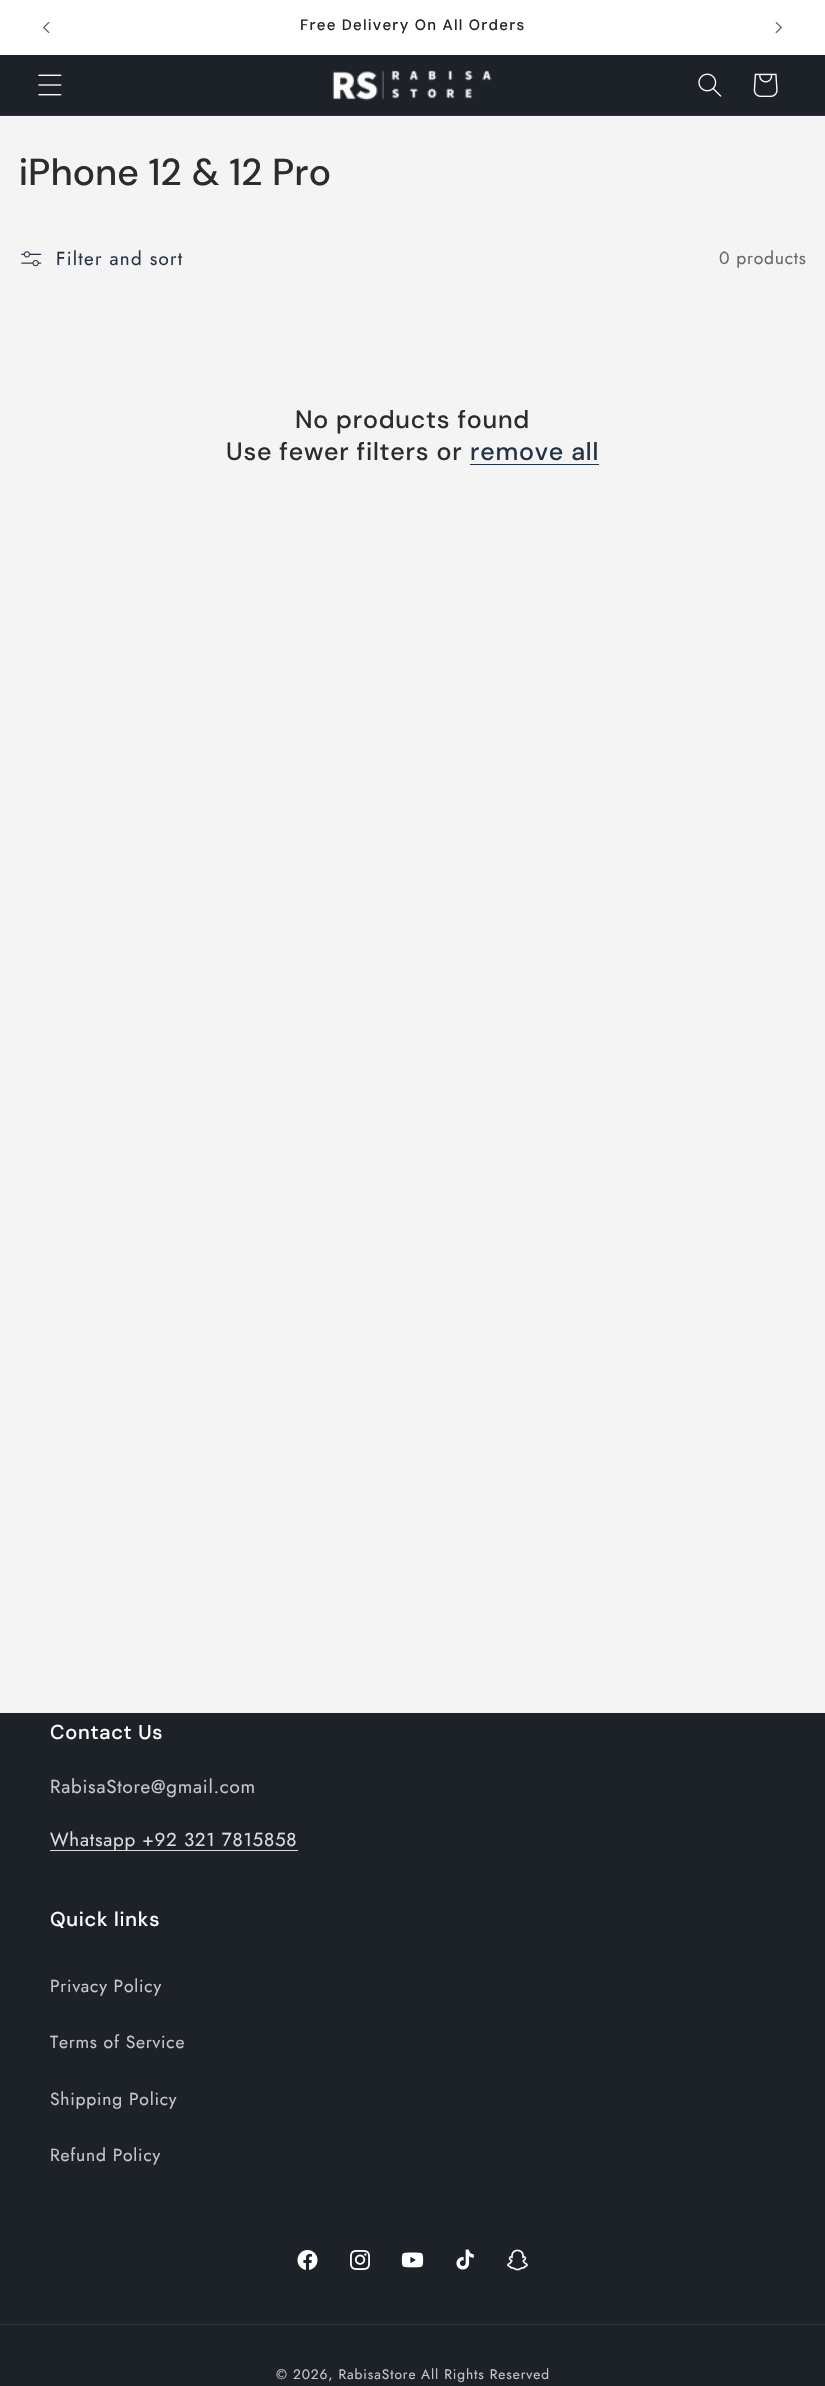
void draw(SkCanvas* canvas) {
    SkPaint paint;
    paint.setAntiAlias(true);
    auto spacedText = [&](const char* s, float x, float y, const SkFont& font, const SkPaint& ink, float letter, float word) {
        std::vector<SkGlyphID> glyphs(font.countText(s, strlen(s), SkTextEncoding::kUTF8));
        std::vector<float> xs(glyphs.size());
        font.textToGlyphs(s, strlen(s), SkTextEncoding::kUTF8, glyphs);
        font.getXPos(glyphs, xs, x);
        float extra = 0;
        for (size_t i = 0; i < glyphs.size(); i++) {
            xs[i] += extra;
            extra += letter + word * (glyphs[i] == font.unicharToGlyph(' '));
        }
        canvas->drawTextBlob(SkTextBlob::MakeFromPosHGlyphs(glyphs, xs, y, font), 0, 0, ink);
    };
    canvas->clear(0xFFF4F4F4);
    paint.setColor(0xFFFFFFFF);
    canvas->drawRect(SkRect::MakeXYWH(0, 0, 825, 55), paint);
    canvas->drawImageRect(SkImages::DeferredFromEncodedData(SkData::MakeFromFileName("img1.png")), SkRect::MakeXYWH(43, 21, 7, 13), SkSamplingOptions());
    SkFont font1(fontMgr->matchFamilyStyle("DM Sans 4", SkFontStyle(500, SkFontStyle::kNormal_Width, SkFontStyle::kUpright_Slant)), 15);
    font1.setSubpixel(true);
    paint.setColor(0xFF262626);
    spacedText("Free Delivery On All Orders", 300, 30, font1, paint, 1.25f, 0);
    canvas->drawImageRect(SkImages::DeferredFromEncodedData(SkData::MakeFromFileName("img2.png")), SkRect::MakeXYWH(775, 21, 7, 13), SkSamplingOptions());
    paint.setColor(0xFF1C2228);
    canvas->drawRect(SkRect::MakeXYWH(0, 55, 825, 60), paint);
    paint.setColor(0xFF2E3439);
    canvas->drawRect(SkRect::MakeXYWH(0, 115, 825, 1), paint);
    canvas->drawImageRect(SkImages::DeferredFromEncodedData(SkData::MakeFromFileName("img3.png")), SkRect::MakeXYWH(38, 74, 24, 22), SkSamplingOptions());
    canvas->drawImageRect(SkImages::DeferredFromEncodedData(SkData::MakeFromFileName("img4.png")), SkRect::MakeXYWH(332, 70, 160, 31), SkSamplingOptions());
    canvas->drawImageRect(SkImages::DeferredFromEncodedData(SkData::MakeFromFileName("img5.png")), SkRect::MakeXYWH(698, 73, 24, 24), SkSamplingOptions());
    canvas->drawImageRect(SkImages::DeferredFromEncodedData(SkData::MakeFromFileName("img6.png")), SkRect::MakeXYWH(753, 73, 25, 24), SkSamplingOptions());
    SkFont font2(fontMgr->matchFamilyStyle("DM Sans", SkFontStyle(500, SkFontStyle::kNormal_Width, SkFontStyle::kUpright_Slant)), 37.5f);
    font2.setSubpixel(true);
    paint.setColor(0xFF2B2C2D);
    spacedText("iPhone 12 & 12 Pro", 19, 185, font2, paint, 0.75f, 0);
    canvas->drawImageRect(SkImages::DeferredFromEncodedData(SkData::MakeFromFileName("img7.png")), SkRect::MakeXYWH(21, 251, 21, 16), SkSamplingOptions());
    SkFont font3(fontMgr->matchFamilyStyle("Jost", SkFontStyle::Normal()), 18.75f);
    font3.setSubpixel(true);
    paint.setColor(0xFF253347);
    spacedText("Filter and sort", 56, 265, font3, paint, 1.25f, 0);
    SkFont font4(fontMgr->matchFamilyStyle("Jost", SkFontStyle::Normal()), 17.5f);
    font4.setSubpixel(true);
    paint.setColor(0xFF676869);
    spacedText("0 products", 719, 264, font4, paint, 0.75f, 0);
    SkFont font5(fontMgr->matchFamilyStyle("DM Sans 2", SkFontStyle(500, SkFontStyle::kNormal_Width, SkFontStyle::kUpright_Slant)), 25);
    font5.setSubpixel(true);
    paint.setColor(0xFF2B2C2D);
    spacedText("No products found", 295, 428, font5, paint, 0.75f, 0);
    spacedText("Use fewer filters or", 226, 460, font5, paint, 0.75f, 0);
    paint.setColor(0xFF253347);
    spacedText("remove all", 470, 460, font5, paint, 0.75f, 0);
    canvas->drawRect(SkRect::MakeXYWH(470, 464, 129, 1), paint);
    paint.setColor(0xFF1C2228);
    canvas->drawRect(SkRect::MakeXYWH(0, 1713, 825, 673), paint);
    SkFont font6(fontMgr->matchFamilyStyle("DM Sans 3", SkFontStyle(500, SkFontStyle::kNormal_Width, SkFontStyle::kUpright_Slant)), 20);
    font6.setSubpixel(true);
    paint.setColor(0xFFFFFFFF);
    spacedText("Contact Us", 50, 1739, font6, paint, 0.75f, 0);
    paint.setColor(0xFFC6C8C9);
    spacedText("RabisaStore@gmail.com", 50, 1793, font3, paint, 0.75f, 0);
    paint.setColor(0xFFDDDEDF);
    canvas->drawRect(SkRect::MakeXYWH(50, 1850, 248, 1), paint);
    spacedText("Whatsapp +92 321 7815858", 50, 1846, font3, paint, 0.75f, 0);
    paint.setColor(0xFFFFFFFF);
    spacedText("Quick links", 50, 1926, font6, paint, 0.75f, 0);
    paint.setColor(0xFFC6C8C9);
    spacedText("Privacy Policy", 50, 1992, font4, paint, 0.75f, 0);
    spacedText("Terms of Service", 50, 2048, font4, paint, 0.75f, 0);
    spacedText("Shipping Policy", 50, 2105, font4, paint, 0.75f, 0);
    spacedText("Refund Policy", 50, 2161, font4, paint, 0.75f, 0);
    canvas->drawImageRect(SkImages::DeferredFromEncodedData(SkData::MakeFromFileName("img8.png")), SkRect::MakeXYWH(297, 2250, 21, 20), SkSamplingOptions());
    canvas->drawImageRect(SkImages::DeferredFromEncodedData(SkData::MakeFromFileName("img9.png")), SkRect::MakeXYWH(350, 2250, 20, 20), SkSamplingOptions());
    canvas->drawImageRect(SkImages::DeferredFromEncodedData(SkData::MakeFromFileName("img10.png")), SkRect::MakeXYWH(401, 2252, 23, 16), SkSamplingOptions());
    canvas->drawImageRect(SkImages::DeferredFromEncodedData(SkData::MakeFromFileName("img11.png")), SkRect::MakeXYWH(456, 2249, 18, 21), SkSamplingOptions());
    canvas->drawImageRect(SkImages::DeferredFromEncodedData(SkData::MakeFromFileName("img12.png")), SkRect::MakeXYWH(507, 2249, 21, 22), SkSamplingOptions());
    paint.setColor(0xFF2E3439);
    canvas->drawRect(SkRect::MakeXYWH(0, 2324, 825, 1), paint);
    SkFont font7(fontMgr->matchFamilyStyle("Jost", SkFontStyle::Normal()), 13.75f);
    font7.setSubpixel(true);
    paint.setColor(0xFFC6C8C9);
    spacedText("© 2026, RabisaStore", 276, 2379, font7, paint, 0.9f, 0);
    spacedText("All Rights Reserved", 421, 2379, font7, paint, 0.9f, 0);
}
